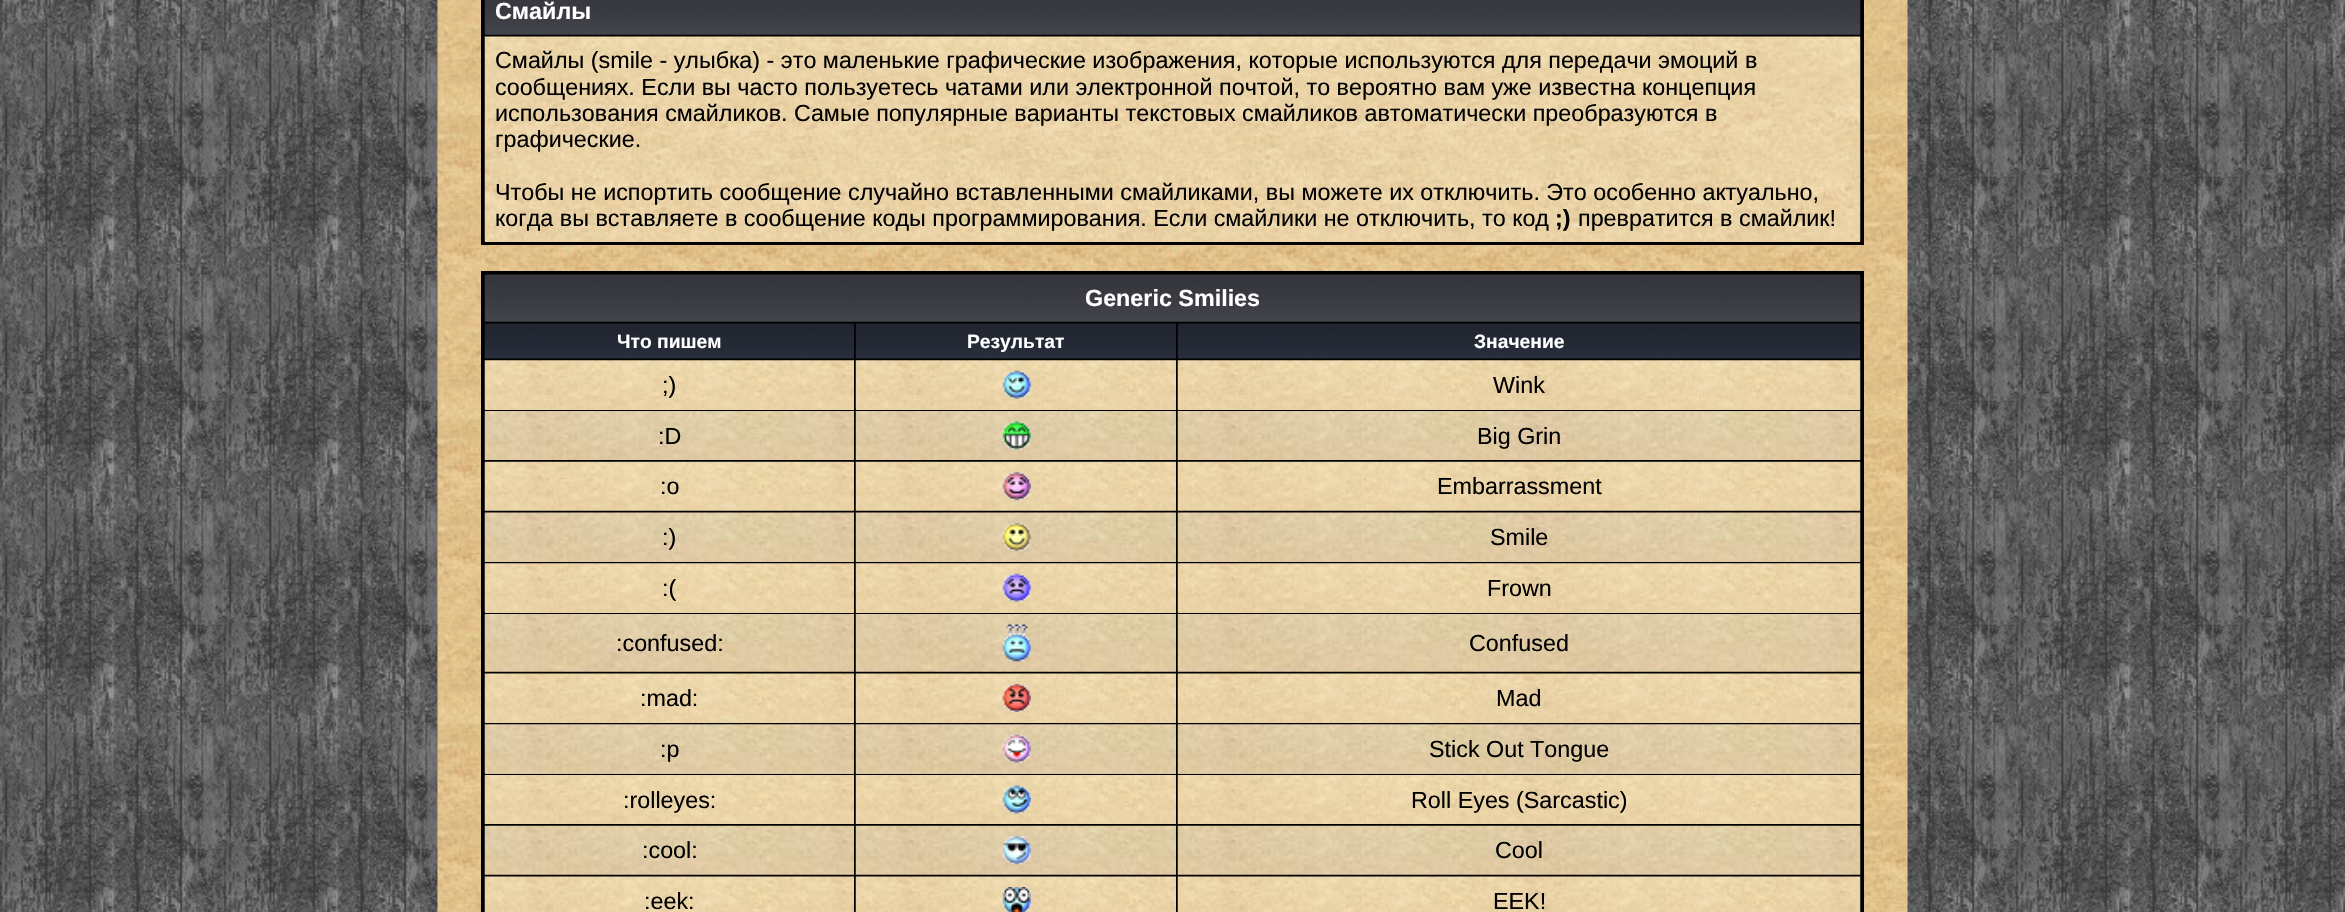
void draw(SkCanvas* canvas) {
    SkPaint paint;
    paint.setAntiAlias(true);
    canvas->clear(0xFFFFFFFF);
    canvas->drawImageRect(SkImages::DeferredFromEncodedData(SkData::MakeFromFileName("img1.png")), SkRect::MakeXYWH(0, 0, 2345, 912), SkSamplingOptions());
    canvas->drawImageRect(SkImages::DeferredFromEncodedData(SkData::MakeFromFileName("img2.png")), SkRect::MakeXYWH(437, 0, 1471, 912), SkSamplingOptions());
    paint.setColor(0xFF000000);
    canvas->drawRect(SkRect::MakeXYWH(481, 0, 1383, 245), paint);
    canvas->drawImageRect(SkImages::DeferredFromEncodedData(SkData::MakeFromFileName("img3.png")), SkRect::MakeXYWH(484, 0, 1377, 35), SkSamplingOptions());
    SkFont font1(fontMgr->matchFamilyStyle("Liberation Sans", SkFontStyle::Bold()), 23.33f);
    font1.setSubpixel(true);
    paint.setColor(0xFFFFFFFF);
    canvas->drawString("Смайлы", 495, 19, font1, paint);
    paint.setColor(0xFFE9D2A6);
    canvas->drawRect(SkRect::MakeXYWH(485, 241, 1375, 1), paint);
    canvas->drawImageRect(SkImages::DeferredFromEncodedData(SkData::MakeFromFileName("img4.png")), SkRect::MakeXYWH(484, 36, 1377, 206), SkSamplingOptions());
    SkFont font2(fontMgr->matchFamilyStyle("Liberation Sans", SkFontStyle::Normal()), 23.33f);
    font2.setSubpixel(true);
    paint.setColor(0xFF000000);
    canvas->drawString("Смайлы (smile - улыбка) - это маленькие графические изображения, которые используются для передачи эмоций в", 495, 68, font2, paint);
    canvas->drawString("сообщениях. Если вы часто пользуетесь чатами или электронной почтой, то вероятно вам уже известна концепция", 495, 95, font2, paint);
    canvas->drawString("использования смайликов. Самые популярные варианты текстовых смайликов автоматически преобразуются в", 495, 121, font2, paint);
    canvas->drawString("графические.", 495, 147, font2, paint);
    canvas->drawString("Чтобы не испортить сообщение случайно вставленными смайликами, вы можете их отключить. Это особенно актуально,", 495, 200, font2, paint);
    canvas->drawString("когда вы вставляете в сообщение коды программирования. Если смайлики не отключить, то код", 495, 226, font2, paint);
    canvas->drawString(";)", 1555, 226, font1, paint);
    canvas->drawString("превратится в смайлик!", 1578, 226, font2, paint);
    canvas->drawRect(SkRect::MakeXYWH(481, 271, 1383, 641), paint);
    canvas->drawImageRect(SkImages::DeferredFromEncodedData(SkData::MakeFromFileName("img5.png")), SkRect::MakeXYWH(484, 274, 1377, 48), SkSamplingOptions());
    paint.setColor(0xFFFFFFFF);
    canvas->drawString("Generic Smilies", 1085, 306, font1, paint);
    canvas->drawImageRect(SkImages::DeferredFromEncodedData(SkData::MakeFromFileName("img6.png")), SkRect::MakeXYWH(484, 323, 370, 36), SkSamplingOptions());
    SkFont font3(fontMgr->matchFamilyStyle("Liberation Sans", SkFontStyle::Bold()), 19.25f);
    font3.setSubpixel(true);
    canvas->drawString("Что пишем", 617, 348, font3, paint);
    canvas->drawImageRect(SkImages::DeferredFromEncodedData(SkData::MakeFromFileName("img7.png")), SkRect::MakeXYWH(855, 323, 321, 36), SkSamplingOptions());
    canvas->drawString("Результат", 967, 348, font3, paint);
    canvas->drawImageRect(SkImages::DeferredFromEncodedData(SkData::MakeFromFileName("img8.png")), SkRect::MakeXYWH(1177, 323, 684, 36), SkSamplingOptions());
    canvas->drawString("Значение", 1474, 348, font3, paint);
    paint.setColor(0xFFE9D2A6);
    canvas->drawRect(SkRect::MakeXYWH(485, 409, 369, 1), paint);
    canvas->drawImageRect(SkImages::DeferredFromEncodedData(SkData::MakeFromFileName("img9.png")), SkRect::MakeXYWH(484, 360, 370, 50), SkSamplingOptions());
    paint.setColor(0xFF000000);
    canvas->drawString(";)", 662, 393, font2, paint);
    paint.setColor(0xFFE9D2A6);
    canvas->drawRect(SkRect::MakeXYWH(856, 409, 320, 1), paint);
    canvas->drawImageRect(SkImages::DeferredFromEncodedData(SkData::MakeFromFileName("img10.png")), SkRect::MakeXYWH(855, 360, 321, 50), SkSamplingOptions());
    canvas->drawImageRect(SkImages::DeferredFromEncodedData(SkData::MakeFromFileName("img11.png")), SkRect::MakeXYWH(1002, 370, 29, 29), SkSamplingOptions());
    canvas->drawRect(SkRect::MakeXYWH(1178, 409, 682, 1), paint);
    canvas->drawImageRect(SkImages::DeferredFromEncodedData(SkData::MakeFromFileName("img12.png")), SkRect::MakeXYWH(1177, 360, 684, 50), SkSamplingOptions());
    paint.setColor(0xFF000000);
    canvas->drawString("Wink", 1493, 393, font2, paint);
    canvas->drawImageRect(SkImages::DeferredFromEncodedData(SkData::MakeFromFileName("img13.png")), SkRect::MakeXYWH(484, 411, 370, 49), SkSamplingOptions());
    canvas->drawString(":D", 658, 444, font2, paint);
    canvas->drawImageRect(SkImages::DeferredFromEncodedData(SkData::MakeFromFileName("img14.png")), SkRect::MakeXYWH(855, 411, 321, 49), SkSamplingOptions());
    canvas->drawImageRect(SkImages::DeferredFromEncodedData(SkData::MakeFromFileName("img15.png")), SkRect::MakeXYWH(1002, 421, 29, 29), SkSamplingOptions());
    canvas->drawImageRect(SkImages::DeferredFromEncodedData(SkData::MakeFromFileName("img16.png")), SkRect::MakeXYWH(1177, 411, 684, 49), SkSamplingOptions());
    canvas->drawString("Big Grin", 1477, 444, font2, paint);
    canvas->drawImageRect(SkImages::DeferredFromEncodedData(SkData::MakeFromFileName("img17.png")), SkRect::MakeXYWH(484, 461, 370, 50), SkSamplingOptions());
    canvas->drawString(":o", 660, 494, font2, paint);
    canvas->drawImageRect(SkImages::DeferredFromEncodedData(SkData::MakeFromFileName("img18.png")), SkRect::MakeXYWH(855, 461, 321, 50), SkSamplingOptions());
    canvas->drawImageRect(SkImages::DeferredFromEncodedData(SkData::MakeFromFileName("img19.png")), SkRect::MakeXYWH(1002, 472, 29, 29), SkSamplingOptions());
    canvas->drawImageRect(SkImages::DeferredFromEncodedData(SkData::MakeFromFileName("img20.png")), SkRect::MakeXYWH(1177, 461, 684, 50), SkSamplingOptions());
    canvas->drawString("Embarrassment", 1437, 494, font2, paint);
    paint.setColor(0xFFD6C49E);
    canvas->drawRect(SkRect::MakeXYWH(485, 561, 369, 1), paint);
    canvas->drawImageRect(SkImages::DeferredFromEncodedData(SkData::MakeFromFileName("img21.png")), SkRect::MakeXYWH(484, 512, 370, 50), SkSamplingOptions());
    paint.setColor(0xFF000000);
    canvas->drawString(":)", 662, 545, font2, paint);
    paint.setColor(0xFFD6C49E);
    canvas->drawRect(SkRect::MakeXYWH(856, 561, 320, 1), paint);
    canvas->drawImageRect(SkImages::DeferredFromEncodedData(SkData::MakeFromFileName("img22.png")), SkRect::MakeXYWH(855, 512, 321, 50), SkSamplingOptions());
    canvas->drawImageRect(SkImages::DeferredFromEncodedData(SkData::MakeFromFileName("img23.png")), SkRect::MakeXYWH(1002, 523, 29, 28), SkSamplingOptions());
    canvas->drawRect(SkRect::MakeXYWH(1178, 561, 682, 1), paint);
    canvas->drawImageRect(SkImages::DeferredFromEncodedData(SkData::MakeFromFileName("img24.png")), SkRect::MakeXYWH(1177, 512, 684, 50), SkSamplingOptions());
    paint.setColor(0xFF000000);
    canvas->drawString("Smile", 1490, 545, font2, paint);
    paint.setColor(0xFFE9D2A6);
    canvas->drawRect(SkRect::MakeXYWH(485, 612, 369, 1), paint);
    canvas->drawImageRect(SkImages::DeferredFromEncodedData(SkData::MakeFromFileName("img25.png")), SkRect::MakeXYWH(484, 563, 370, 50), SkSamplingOptions());
    paint.setColor(0xFF000000);
    canvas->drawString(":(", 662, 596, font2, paint);
    paint.setColor(0xFFE9D2A6);
    canvas->drawRect(SkRect::MakeXYWH(856, 612, 320, 1), paint);
    canvas->drawImageRect(SkImages::DeferredFromEncodedData(SkData::MakeFromFileName("img26.png")), SkRect::MakeXYWH(855, 563, 321, 50), SkSamplingOptions());
    canvas->drawImageRect(SkImages::DeferredFromEncodedData(SkData::MakeFromFileName("img27.png")), SkRect::MakeXYWH(1002, 573, 29, 29), SkSamplingOptions());
    canvas->drawRect(SkRect::MakeXYWH(1178, 612, 682, 1), paint);
    canvas->drawImageRect(SkImages::DeferredFromEncodedData(SkData::MakeFromFileName("img28.png")), SkRect::MakeXYWH(1177, 563, 684, 50), SkSamplingOptions());
    paint.setColor(0xFF000000);
    canvas->drawString("Frown", 1487, 596, font2, paint);
    canvas->drawImageRect(SkImages::DeferredFromEncodedData(SkData::MakeFromFileName("img29.png")), SkRect::MakeXYWH(484, 614, 370, 58), SkSamplingOptions());
    canvas->drawString(":confused:", 616, 651, font2, paint);
    canvas->drawImageRect(SkImages::DeferredFromEncodedData(SkData::MakeFromFileName("img30.png")), SkRect::MakeXYWH(855, 614, 321, 58), SkSamplingOptions());
    canvas->drawImageRect(SkImages::DeferredFromEncodedData(SkData::MakeFromFileName("img31.png")), SkRect::MakeXYWH(1002, 624, 29, 38), SkSamplingOptions());
    canvas->drawImageRect(SkImages::DeferredFromEncodedData(SkData::MakeFromFileName("img32.png")), SkRect::MakeXYWH(1177, 614, 684, 58), SkSamplingOptions());
    canvas->drawString("Confused", 1469, 651, font2, paint);
    paint.setColor(0xFFE9D2A6);
    canvas->drawRect(SkRect::MakeXYWH(485, 722, 369, 1), paint);
    canvas->drawImageRect(SkImages::DeferredFromEncodedData(SkData::MakeFromFileName("img33.png")), SkRect::MakeXYWH(484, 673, 370, 50), SkSamplingOptions());
    paint.setColor(0xFF000000);
    canvas->drawString(":mad:", 640, 706, font2, paint);
    paint.setColor(0xFFE9D2A6);
    canvas->drawRect(SkRect::MakeXYWH(856, 722, 320, 1), paint);
    canvas->drawImageRect(SkImages::DeferredFromEncodedData(SkData::MakeFromFileName("img34.png")), SkRect::MakeXYWH(855, 673, 321, 50), SkSamplingOptions());
    canvas->drawImageRect(SkImages::DeferredFromEncodedData(SkData::MakeFromFileName("img35.png")), SkRect::MakeXYWH(1002, 684, 29, 28), SkSamplingOptions());
    canvas->drawRect(SkRect::MakeXYWH(1178, 722, 682, 1), paint);
    canvas->drawImageRect(SkImages::DeferredFromEncodedData(SkData::MakeFromFileName("img36.png")), SkRect::MakeXYWH(1177, 673, 684, 50), SkSamplingOptions());
    paint.setColor(0xFF000000);
    canvas->drawString("Mad", 1496, 706, font2, paint);
    paint.setColor(0xFFD6C49E);
    canvas->drawRect(SkRect::MakeXYWH(485, 773, 369, 1), paint);
    canvas->drawImageRect(SkImages::DeferredFromEncodedData(SkData::MakeFromFileName("img37.png")), SkRect::MakeXYWH(484, 724, 370, 50), SkSamplingOptions());
    paint.setColor(0xFF000000);
    canvas->drawString(":p", 660, 757, font2, paint);
    paint.setColor(0xFFD6C49E);
    canvas->drawRect(SkRect::MakeXYWH(856, 773, 320, 1), paint);
    canvas->drawImageRect(SkImages::DeferredFromEncodedData(SkData::MakeFromFileName("img38.png")), SkRect::MakeXYWH(855, 724, 321, 50), SkSamplingOptions());
    canvas->drawImageRect(SkImages::DeferredFromEncodedData(SkData::MakeFromFileName("img39.png")), SkRect::MakeXYWH(1002, 734, 29, 29), SkSamplingOptions());
    canvas->drawRect(SkRect::MakeXYWH(1178, 773, 682, 1), paint);
    canvas->drawImageRect(SkImages::DeferredFromEncodedData(SkData::MakeFromFileName("img40.png")), SkRect::MakeXYWH(1177, 724, 684, 50), SkSamplingOptions());
    paint.setColor(0xFF000000);
    canvas->drawString("Stick Out Tongue", 1429, 757, font2, paint);
    canvas->drawImageRect(SkImages::DeferredFromEncodedData(SkData::MakeFromFileName("img41.png")), SkRect::MakeXYWH(484, 775, 370, 49), SkSamplingOptions());
    canvas->drawString(":rolleyes:", 623, 808, font2, paint);
    canvas->drawImageRect(SkImages::DeferredFromEncodedData(SkData::MakeFromFileName("img42.png")), SkRect::MakeXYWH(855, 775, 321, 49), SkSamplingOptions());
    canvas->drawImageRect(SkImages::DeferredFromEncodedData(SkData::MakeFromFileName("img43.png")), SkRect::MakeXYWH(1002, 785, 29, 29), SkSamplingOptions());
    canvas->drawImageRect(SkImages::DeferredFromEncodedData(SkData::MakeFromFileName("img44.png")), SkRect::MakeXYWH(1177, 775, 684, 49), SkSamplingOptions());
    canvas->drawString("Roll Eyes (Sarcastic)", 1411, 808, font2, paint);
    canvas->drawImageRect(SkImages::DeferredFromEncodedData(SkData::MakeFromFileName("img45.png")), SkRect::MakeXYWH(484, 825, 370, 50), SkSamplingOptions());
    canvas->drawString(":cool:", 642, 858, font2, paint);
    canvas->drawImageRect(SkImages::DeferredFromEncodedData(SkData::MakeFromFileName("img46.png")), SkRect::MakeXYWH(855, 825, 321, 50), SkSamplingOptions());
    canvas->drawImageRect(SkImages::DeferredFromEncodedData(SkData::MakeFromFileName("img47.png")), SkRect::MakeXYWH(1002, 836, 29, 29), SkSamplingOptions());
    canvas->drawImageRect(SkImages::DeferredFromEncodedData(SkData::MakeFromFileName("img48.png")), SkRect::MakeXYWH(1177, 825, 684, 50), SkSamplingOptions());
    canvas->drawString("Cool", 1495, 858, font2, paint);
    canvas->drawImageRect(SkImages::DeferredFromEncodedData(SkData::MakeFromFileName("img49.png")), SkRect::MakeXYWH(484, 876, 370, 36), SkSamplingOptions());
    canvas->drawString(":eek:", 644, 909, font2, paint);
    canvas->drawImageRect(SkImages::DeferredFromEncodedData(SkData::MakeFromFileName("img50.png")), SkRect::MakeXYWH(855, 876, 321, 36), SkSamplingOptions());
    canvas->drawImageRect(SkImages::DeferredFromEncodedData(SkData::MakeFromFileName("img51.png")), SkRect::MakeXYWH(1002, 887, 29, 25), SkSamplingOptions());
    canvas->drawImageRect(SkImages::DeferredFromEncodedData(SkData::MakeFromFileName("img52.png")), SkRect::MakeXYWH(1177, 876, 684, 36), SkSamplingOptions());
    canvas->drawString("EEK!", 1493, 909, font2, paint);
}
